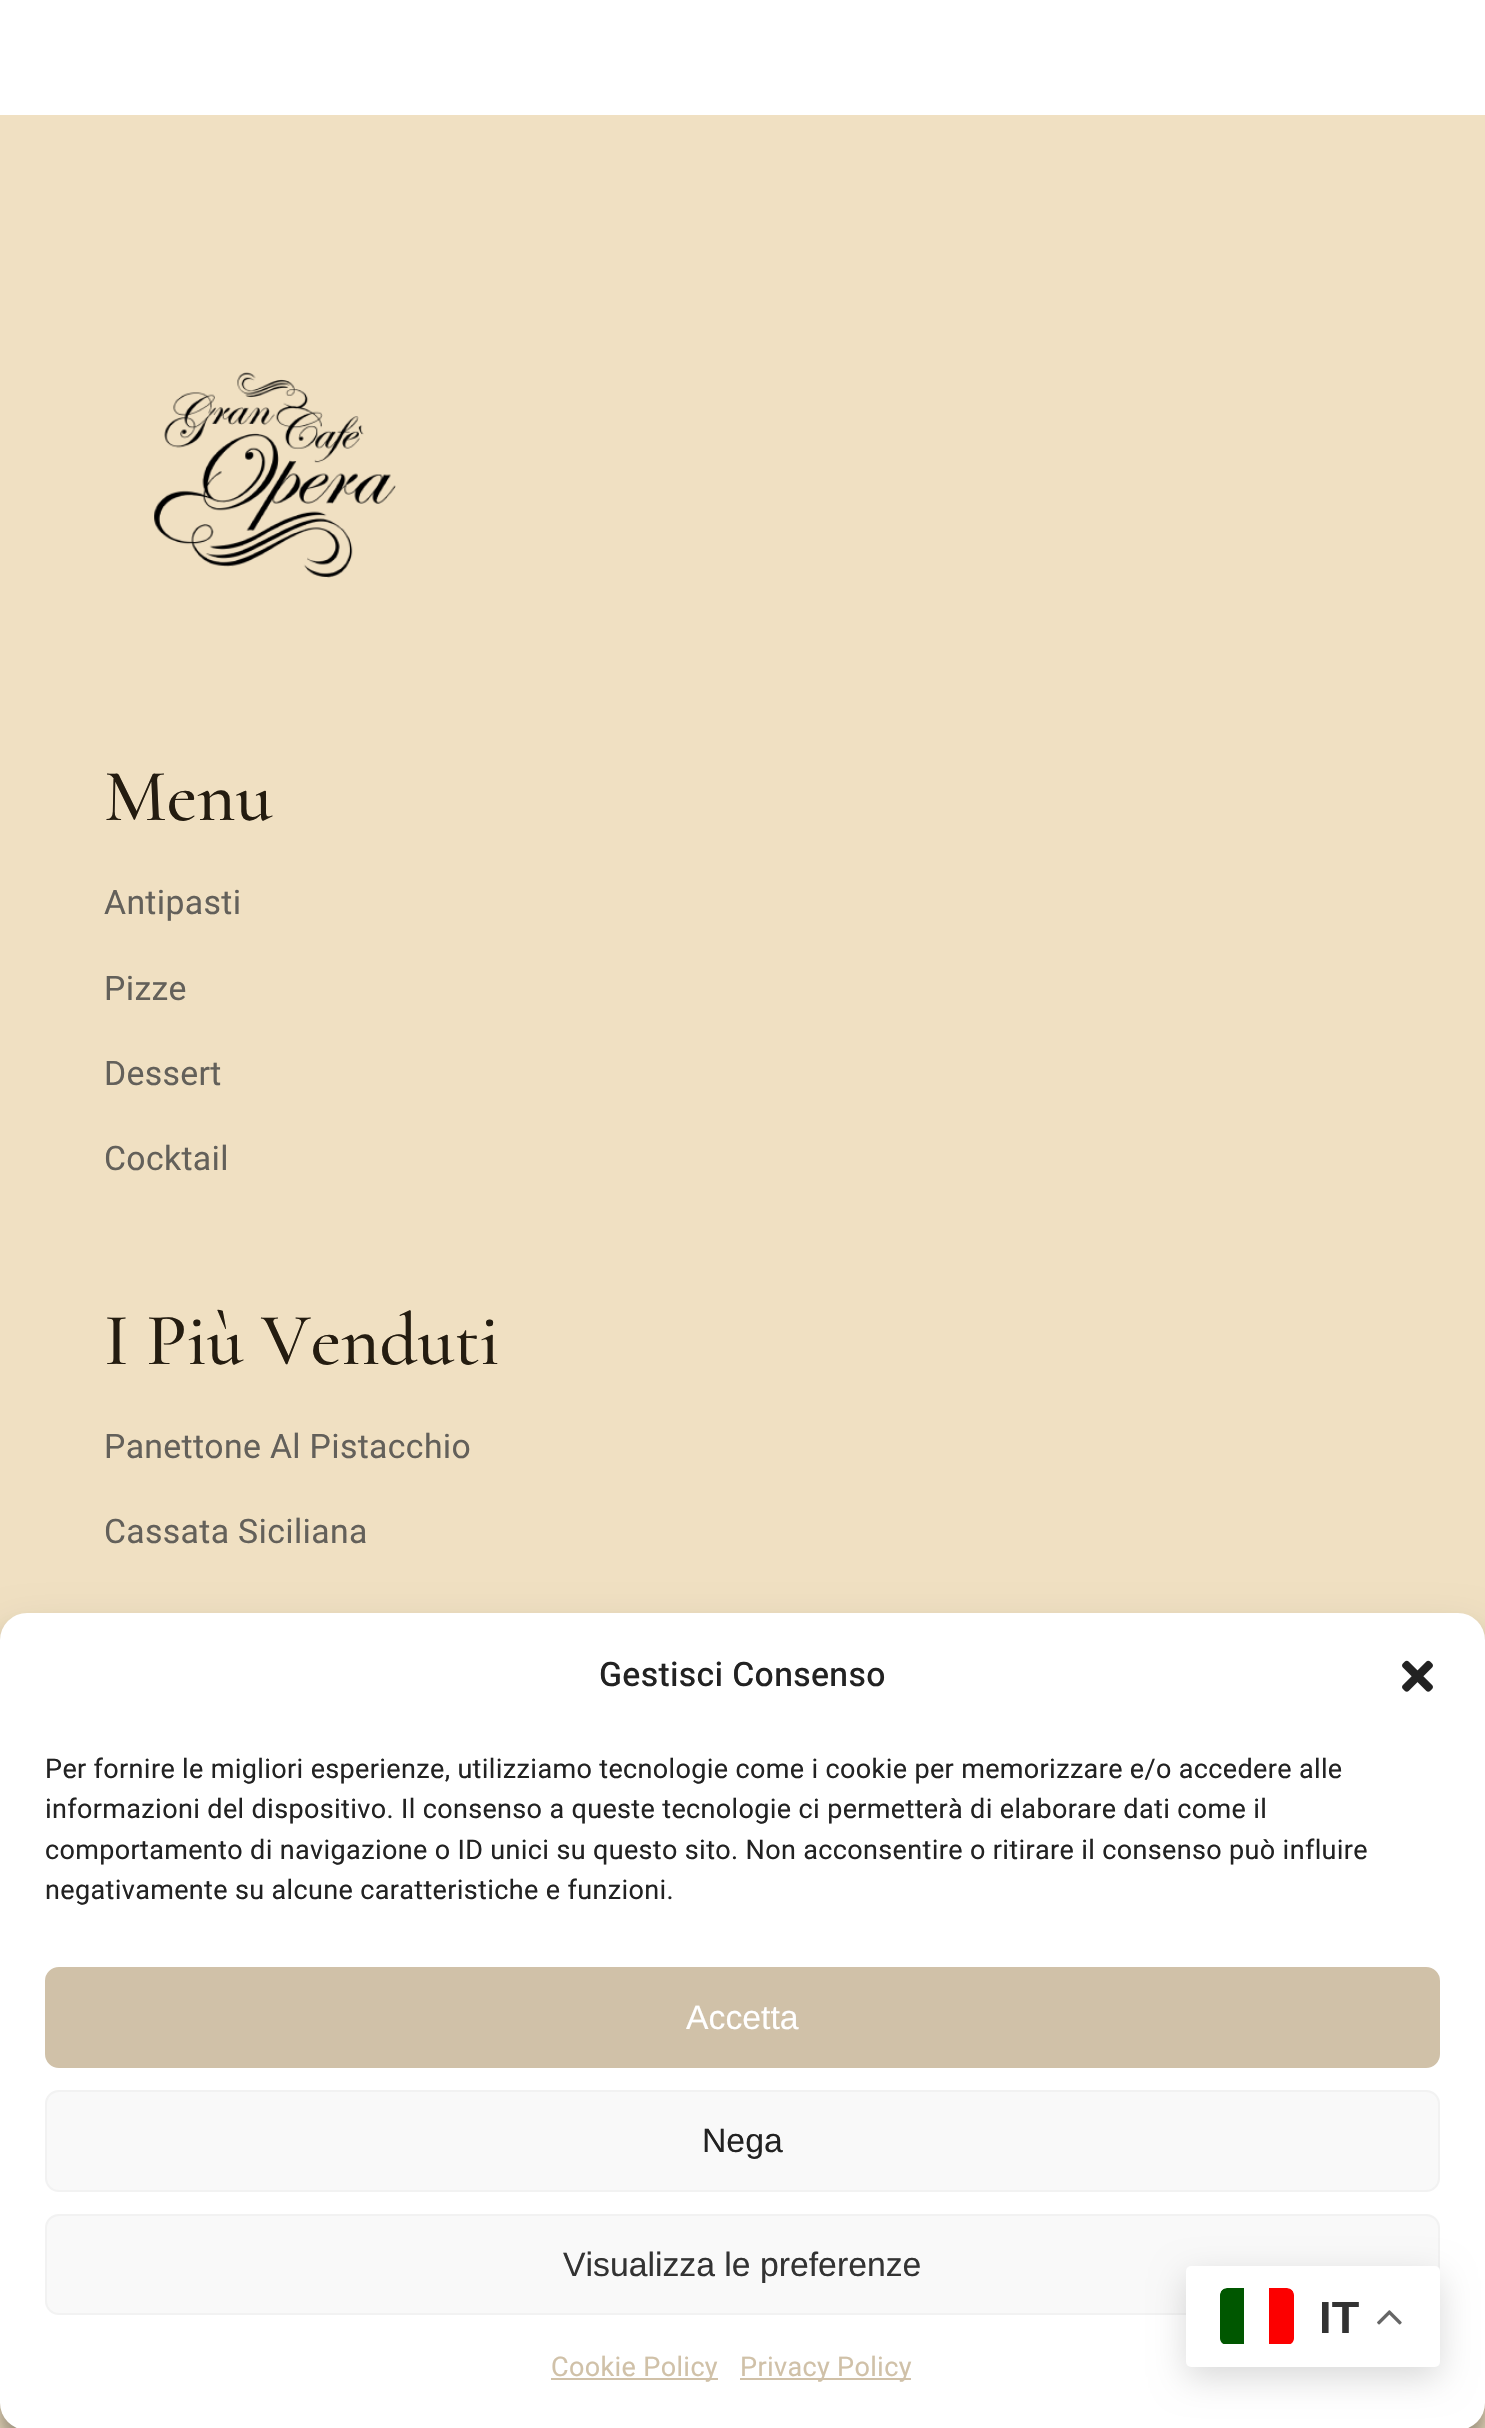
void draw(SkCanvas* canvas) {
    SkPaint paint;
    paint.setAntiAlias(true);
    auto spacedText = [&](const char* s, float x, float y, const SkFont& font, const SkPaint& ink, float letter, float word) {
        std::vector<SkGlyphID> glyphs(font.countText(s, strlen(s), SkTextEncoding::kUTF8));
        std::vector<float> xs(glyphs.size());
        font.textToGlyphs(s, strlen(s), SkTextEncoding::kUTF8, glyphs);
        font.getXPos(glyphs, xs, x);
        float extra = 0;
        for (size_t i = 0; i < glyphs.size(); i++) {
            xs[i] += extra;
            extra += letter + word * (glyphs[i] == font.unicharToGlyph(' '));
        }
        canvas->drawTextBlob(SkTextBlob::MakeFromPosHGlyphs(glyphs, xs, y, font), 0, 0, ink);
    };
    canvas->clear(0xFFFFFFFF);
    paint.setColor(0xFFF0E0C2);
    canvas->drawRect(SkRect::MakeXYWH(0, 115, 1485, 1525), paint);
    canvas->drawImageRect(SkImages::DeferredFromEncodedData(SkData::MakeFromFileName("img1.png")), SkRect::MakeXYWH(154, 372, 242, 206), SkSamplingOptions());
    SkFont font1(fontMgr->matchFamilyStyle("Cormorant", SkFontStyle(500, SkFontStyle::kNormal_Width, SkFontStyle::kUpright_Slant)), 74.25f);
    font1.setSubpixel(true);
    paint.setColor(0xFF241C10);
    canvas->drawString("Menu", 104, 820, font1, paint);
    SkFont font2(fontMgr->matchFamilyStyle("Heebo", SkFontStyle::Normal()), 33.75f);
    font2.setSubpixel(true);
    paint.setColor(0xFF63605A);
    spacedText("Antipasti", 104, 914, font2, paint, 0.34f, 0);
    spacedText("Pizze", 104, 1000, font2, paint, 0.34f, 0);
    spacedText("Dessert", 104, 1085, font2, paint, 0.34f, 0);
    spacedText("Cocktail", 104, 1170, font2, paint, 0.34f, 0);
    paint.setColor(0xFF241C10);
    canvas->drawString("I Più Venduti", 104, 1364, font1, paint);
    paint.setColor(0xFF63605A);
    spacedText("Panettone Al Pistacchio", 104, 1458, font2, paint, 0.34f, 0);
    spacedText("Cassata Siciliana", 104, 1543, font2, paint, 0.34f, 0);
    paint.setColor(0xFFF0E0C2);
    canvas->drawRect(SkRect::MakeXYWH(0, 2403, 1485, 25), paint);
    paint.setColor(0x3B000000);
    paint.setMaskFilter(SkMaskFilter::MakeBlur(kNormal_SkBlurStyle, 7));
    canvas->drawRoundRect(SkRect::MakeXYWH(0, 1627, 1485, 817), 27, 27, paint);
    paint.setMaskFilter(nullptr);
    paint.setColor(0x30000000);
    paint.setMaskFilter(SkMaskFilter::MakeBlur(kNormal_SkBlurStyle, 22.5f));
    canvas->drawRoundRect(SkRect::MakeXYWH(0, 1636, 1485, 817), 27, 27, paint);
    paint.setMaskFilter(nullptr);
    paint.setColor(0xFFFFFFFF);
    canvas->drawRoundRect(SkRect::MakeXYWH(0, 1613, 1485, 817), 27, 27, paint);
    SkFont font3(fontMgr->matchFamilyStyle("Heebo", SkFontStyle(500, SkFontStyle::kNormal_Width, SkFontStyle::kUpright_Slant)), 33.75f);
    font3.setSubpixel(true);
    paint.setColor(0xFF222222);
    spacedText("Gestisci Consenso", 599, 1686, font3, paint, 0.34f, 0);
    canvas->drawImageRect(SkImages::DeferredFromEncodedData(SkData::MakeFromFileName("img2.png")), SkRect::MakeXYWH(1402, 1660, 31, 32), SkSamplingOptions());
    SkFont font4(fontMgr->matchFamilyStyle("Heebo", SkFontStyle::Normal()), 27);
    font4.setSubpixel(true);
    spacedText("Per fornire le migliori esperienze, utilizziamo tecnologie come i cookie per memorizzare e/o accedere alle", 45, 1778, font4, paint, 0.34f, 0);
    spacedText("informazioni del dispositivo. Il consenso a queste tecnologie ci permetterà di elaborare dati come il", 45, 1818, font4, paint, 0.34f, 0);
    spacedText("comportamento di navigazione o ID unici su questo sito. Non acconsentire o ritirare il consenso può influire", 45, 1859, font4, paint, 0.34f, 0);
    spacedText("negativamente su alcune caratteristiche e funzioni.", 45, 1899, font4, paint, 0.34f, 0);
    paint.setColor(0xFFD0C1A8);
    canvas->drawRoundRect(SkRect::MakeXYWH(46, 1968, 1393, 99), 13, 13, paint);
    paint.setStyle(SkPaint::kStroke_Style);
    paint.setStrokeWidth(2);
    canvas->drawRoundRect(SkRect::MakeXYWH(46, 1968, 1393, 99), 13, 13, paint);
    SkFont font5(fontMgr->matchFamilyStyle("Liberation Sans", SkFontStyle::Normal()), 33.75f);
    font5.setSubpixel(true);
    paint.setStyle(SkPaint::kFill_Style);
    paint.setColor(0xFFFFFFFF);
    canvas->drawString("Accetta", 686, 2029, font5, paint);
    paint.setColor(0xFFF9F9F9);
    canvas->drawRoundRect(SkRect::MakeXYWH(46, 2091, 1393, 100), 13, 13, paint);
    paint.setStyle(SkPaint::kStroke_Style);
    paint.setColor(0xFFF2F2F2);
    canvas->drawRoundRect(SkRect::MakeXYWH(46, 2091, 1393, 100), 13, 13, paint);
    paint.setStyle(SkPaint::kFill_Style);
    paint.setColor(0xFF222222);
    canvas->drawString("Nega", 702, 2152, font5, paint);
    paint.setColor(0xFFF9F9F9);
    canvas->drawRoundRect(SkRect::MakeXYWH(46, 2215, 1393, 99), 13, 13, paint);
    paint.setStyle(SkPaint::kStroke_Style);
    paint.setColor(0xFFF2F2F2);
    canvas->drawRoundRect(SkRect::MakeXYWH(46, 2215, 1393, 99), 13, 13, paint);
    paint.setStyle(SkPaint::kFill_Style);
    paint.setColor(0xFF333333);
    canvas->drawString("Visualizza le preferenze", 563, 2276, font5, paint);
    paint.setColor(0xFFD0C1A8);
    canvas->drawRect(SkRect::MakeXYWH(551, 2378, 167, 2), paint);
    spacedText("Cookie Policy", 551, 2376, font4, paint, 0.34f, 0);
    canvas->drawRect(SkRect::MakeXYWH(740, 2378, 171, 2), paint);
    spacedText("Privacy Policy", 740, 2376, font4, paint, 0.34f, 0);
    paint.setColor(0x26000000);
    paint.setMaskFilter(SkMaskFilter::MakeBlur(kNormal_SkBlurStyle, 17));
    canvas->drawRoundRect(SkRect::MakeXYWH(1186, 2277, 254, 101), 5, 5, paint);
    paint.setMaskFilter(nullptr);
    paint.setColor(0xFFFFFFFF);
    canvas->drawRoundRect(SkRect::MakeXYWH(1186, 2266, 254, 101), 5, 5, paint);
    canvas->save();
    canvas->clipPath(SkPathBuilder().moveTo(1227, 2288).lineTo(1287, 2288).cubicTo(1291, 2288, 1294, 2291, 1294, 2295).lineTo(1294, 2338).cubicTo(1294, 2342, 1291, 2345, 1287, 2345).lineTo(1227, 2345).cubicTo(1223, 2345, 1220, 2342, 1220, 2338).lineTo(1220, 2295).cubicTo(1220, 2291, 1223, 2288, 1227, 2288).close().detach(), true);
    paint.setColor(0xFF005700);
    canvas->drawPath(SkPathBuilder().moveTo(1227, 2288).lineTo(1244, 2288).lineTo(1244, 2344).lineTo(1220, 2344).lineTo(1220, 2295).cubicTo(1220, 2291, 1223, 2288, 1227, 2288).close().detach(), paint);
    paint.setColor(0xFFFC0000);
    canvas->drawPath(SkPathBuilder().moveTo(1269, 2288).lineTo(1287, 2288).cubicTo(1291, 2288, 1294, 2291, 1294, 2295).lineTo(1294, 2344).lineTo(1269, 2344).close().detach(), paint);
    canvas->restore();
    SkFont font6(fontMgr->matchFamilyStyle("Liberation Sans", SkFontStyle::Bold()), 45);
    font6.setSubpixel(true);
    paint.setColor(0xFF333333);
    spacedText("IT", 1319, 2333, font6, paint, 0.34f, 0);
    canvas->drawImageRect(SkImages::DeferredFromEncodedData(SkData::MakeFromFileName("img3.png")), SkRect::MakeXYWH(1377, 2310, 25, 15), SkSamplingOptions());
}
